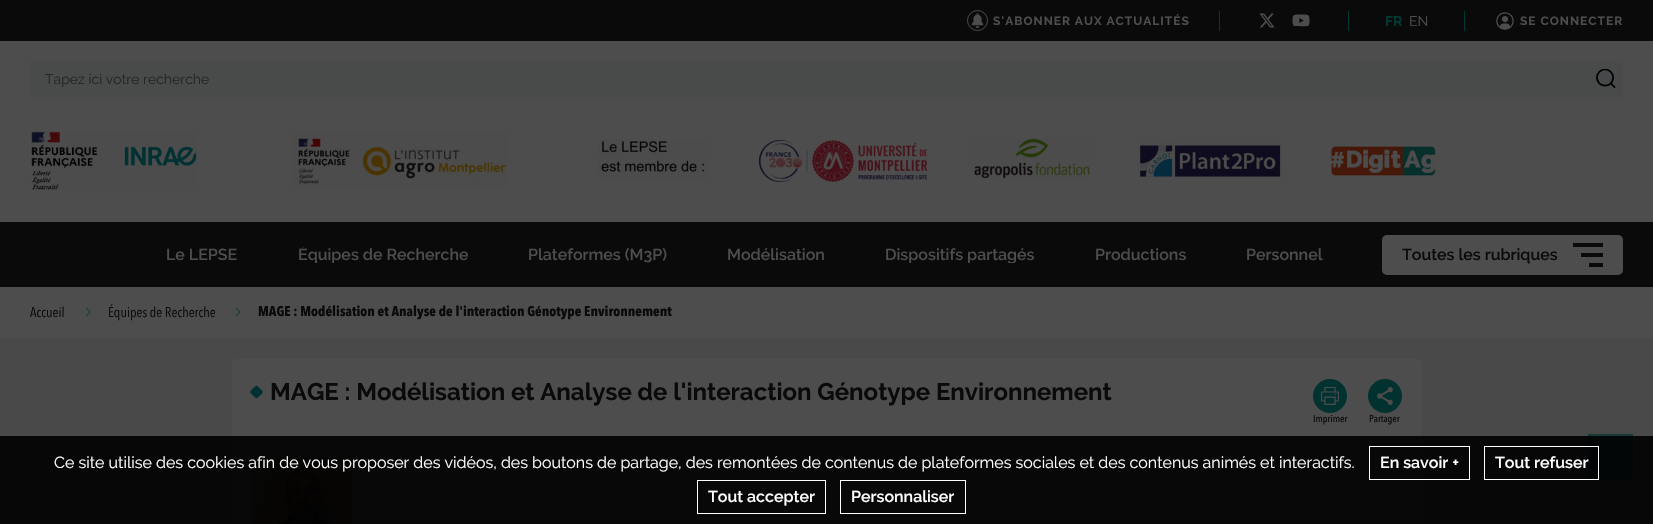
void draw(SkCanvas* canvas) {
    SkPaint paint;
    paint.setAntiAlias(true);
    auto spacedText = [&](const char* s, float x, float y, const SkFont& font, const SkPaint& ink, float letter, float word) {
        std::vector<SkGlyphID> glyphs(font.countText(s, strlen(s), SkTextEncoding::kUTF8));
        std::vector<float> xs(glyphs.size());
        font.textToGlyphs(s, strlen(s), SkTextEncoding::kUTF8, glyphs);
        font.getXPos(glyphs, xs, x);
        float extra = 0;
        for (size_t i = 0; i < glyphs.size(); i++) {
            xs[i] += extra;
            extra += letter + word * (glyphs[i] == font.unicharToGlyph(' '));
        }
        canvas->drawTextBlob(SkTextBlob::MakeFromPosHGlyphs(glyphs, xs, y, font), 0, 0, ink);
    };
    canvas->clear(0xFF4D4D4D);
    paint.setColor(0xFF0A0A0A);
    canvas->drawRect(SkRect::MakeXYWH(0, 0, 1653, 41), paint);
    paint.setStyle(SkPaint::kStroke_Style);
    paint.setStrokeWidth(1);
    paint.setColor(0xFF4D4D4D);
    canvas->drawCircle(977.5f, 20.5f, 10, paint);
    canvas->drawImageRect(SkImages::DeferredFromEncodedData(SkData::MakeFromFileName("img1.png")), SkRect::MakeXYWH(971, 13, 13, 15), SkSamplingOptions());
    SkFont font1(fontMgr->matchFamilyStyle("Raleway", SkFontStyle::Bold()), 12);
    font1.setSubpixel(true);
    paint.setStyle(SkPaint::kFill_Style);
    spacedText("S'ABONNER AUX ACTUALITÉS", 993, 25, font1, paint, 1, 0);
    paint.setColor(0xFF003833);
    canvas->drawRect(SkRect::MakeXYWH(1219, 11, 1, 20), paint);
    canvas->drawImageRect(SkImages::DeferredFromEncodedData(SkData::MakeFromFileName("img2.png")), SkRect::MakeXYWH(1259, 13, 16, 15), SkSamplingOptions());
    canvas->drawImageRect(SkImages::DeferredFromEncodedData(SkData::MakeFromFileName("img3.png")), SkRect::MakeXYWH(1292, 14, 18, 13), SkSamplingOptions());
    canvas->drawRect(SkRect::MakeXYWH(1348, 11, 1, 20), paint);
    SkFont font2(fontMgr->matchFamilyStyle("Raleway", SkFontStyle::Bold()), 14);
    font2.setSubpixel(true);
    canvas->drawString("FR", 1385, 26, font2, paint);
    SkFont font3(fontMgr->matchFamilyStyle("Raleway", SkFontStyle::Normal()), 14);
    font3.setSubpixel(true);
    paint.setColor(0xFF4D4D4D);
    canvas->drawString("EN", 1409, 26, font3, paint);
    paint.setColor(0xFF003833);
    canvas->drawRect(SkRect::MakeXYWH(1464, 11, 1, 20), paint);
    canvas->drawImageRect(SkImages::DeferredFromEncodedData(SkData::MakeFromFileName("img4.png")), SkRect::MakeXYWH(1496, 12, 18, 18), SkSamplingOptions());
    paint.setColor(0xFF4D4D4D);
    spacedText("SE CONNECTER", 1520, 25, font1, paint, 1, 0);
    paint.setColor(0xFF494B4B);
    canvas->drawRoundRect(SkRect::MakeXYWH(30, 61, 1593, 36), 2, 2, paint);
    paint.setColor(0xFF232424);
    canvas->drawString("Tapez ici votre recherche", 45, 84, font3, paint);
    canvas->drawImageRect(SkImages::DeferredFromEncodedData(SkData::MakeFromFileName("img5.png")), SkRect::MakeXYWH(1596, 68, 20, 20), SkSamplingOptions());
    canvas->drawImageRect(SkImages::DeferredFromEncodedData(SkData::MakeFromFileName("img6.png")), SkRect::MakeXYWH(31, 131, 166, 59), SkSamplingOptions());
    canvas->drawImageRect(SkImages::DeferredFromEncodedData(SkData::MakeFromFileName("img7.png")), SkRect::MakeXYWH(291, 131, 216, 56), SkSamplingOptions());
    canvas->drawImageRect(SkImages::DeferredFromEncodedData(SkData::MakeFromFileName("img8.png")), SkRect::MakeXYWH(598, 139, 112, 40), SkSamplingOptions());
    canvas->drawImageRect(SkImages::DeferredFromEncodedData(SkData::MakeFromFileName("img9.png")), SkRect::MakeXYWH(759, 140, 168, 42), SkSamplingOptions());
    canvas->drawImageRect(SkImages::DeferredFromEncodedData(SkData::MakeFromFileName("img10.png")), SkRect::MakeXYWH(974, 138, 116, 41), SkSamplingOptions());
    canvas->drawImageRect(SkImages::DeferredFromEncodedData(SkData::MakeFromFileName("img11.png")), SkRect::MakeXYWH(1137, 142, 146, 36), SkSamplingOptions());
    canvas->drawImageRect(SkImages::DeferredFromEncodedData(SkData::MakeFromFileName("img12.png")), SkRect::MakeXYWH(1331, 146, 105, 30), SkSamplingOptions());
    paint.setColor(0xFF0A0A0A);
    canvas->drawRect(SkRect::MakeXYWH(0, 222, 1653, 65), paint);
    SkFont font4(fontMgr->matchFamilyStyle("Raleway", SkFontStyle(600, SkFontStyle::kNormal_Width, SkFontStyle::kUpright_Slant)), 16);
    font4.setSubpixel(true);
    paint.setColor(0xFF4D4D4D);
    canvas->drawString("Le LEPSE", 166, 260, font4, paint);
    canvas->save();
    canvas->clipRect(SkRect::MakeXYWH(298, 247, 170, 16));
    canvas->drawString("Équipes de Recherche", 298, 260, font4, paint);
    canvas->restore();
    canvas->drawString("Plateformes (M3P)", 528, 260, font4, paint);
    canvas->drawString("Modélisation", 727, 260, font4, paint);
    canvas->save();
    canvas->clipRect(SkRect::MakeXYWH(885, 247, 150, 16));
    canvas->drawString("Dispositifs partagés", 885, 260, font4, paint);
    canvas->restore();
    canvas->drawString("Productions", 1095, 260, font4, paint);
    canvas->drawString("Personnel", 1246, 260, font4, paint);
    canvas->drawRoundRect(SkRect::MakeXYWH(1382, 235, 241, 40), 5, 5, paint);
    paint.setColor(0xFF0A0A0A);
    canvas->drawString("Toutes les rubriques", 1402, 260, font4, paint);
    canvas->drawRect(SkRect::MakeXYWH(1573, 243, 30, 4), paint);
    canvas->drawRect(SkRect::MakeXYWH(1581, 253, 22, 4), paint);
    canvas->drawRect(SkRect::MakeXYWH(1589, 263, 14, 4), paint);
    SkFont font5(fontMgr->matchFamilyStyle("Avenir Next", SkFontStyle::Normal()), 14);
    font5.setSubpixel(true);
    canvas->drawString("Accueil", 30, 317, font5, paint);
    canvas->drawImageRect(SkImages::DeferredFromEncodedData(SkData::MakeFromFileName("img13.png")), SkRect::MakeXYWH(86, 307, 5, 10), SkSamplingOptions());
    canvas->drawString("Équipes de Recherche", 108, 317, font5, paint);
    canvas->drawImageRect(SkImages::DeferredFromEncodedData(SkData::MakeFromFileName("img13.png")), SkRect::MakeXYWH(236, 307, 5, 10), SkSamplingOptions());
    SkFont font6(fontMgr->matchFamilyStyle("Avenir Next", SkFontStyle::Bold()), 14);
    font6.setSubpixel(true);
    canvas->drawString("MAGE : Modélisation et Analyse de l'interaction Génotype Environnement", 258, 316, font6, paint);
    paint.setColor(0xFF49494A);
    canvas->drawRect(SkRect::MakeXYWH(0, 339, 1653, 97), paint);
    paint.setColor(0xFF070707);
    canvas->drawRect(SkRect::MakeXYWH(0, 436, 1653, 88), paint);
    paint.setColor(0xFF4D4D4D);
    canvas->drawRoundRect(SkRect::MakeXYWH(232, 359, 1190, 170), 5, 5, paint);
    paint.setColor(0xFF080808);
    canvas->drawRect(SkRect::MakeXYWH(232, 436, 1190, 88), paint);
    paint.setColor(0xFF003132);
    canvas->drawPath(SkPathBuilder().moveTo(258, 386.5f).lineTo(262.5f, 391).cubicTo(263.5f, 393, 261, 394.5f, 260, 395.5f).cubicTo(259, 396.5f, 257, 399.5f, 255, 397.5f).lineTo(250.5f, 393).cubicTo(249.5f, 391, 252, 389.5f, 253, 388.5f).cubicTo(254, 387.5f, 256, 384.5f, 258, 386.5f).close().detach(), paint);
    SkFont font7(fontMgr->matchFamilyStyle("Raleway", SkFontStyle::Bold()), 24);
    font7.setSubpixel(true);
    paint.setColor(0xFF0A0A0A);
    canvas->drawString("MAGE : Modélisation et Analyse de l'interaction Génotype Environnement", 270, 400, font7, paint);
    paint.setColor(0xFF013230);
    canvas->drawCircle(1330, 396, 17, paint);
    canvas->drawImageRect(SkImages::DeferredFromEncodedData(SkData::MakeFromFileName("img14.png")), SkRect::MakeXYWH(1321, 387, 18, 18), SkSamplingOptions());
    SkFont font8(fontMgr->matchFamilyStyle("Avenir Next", SkFontStyle(500, SkFontStyle::kNormal_Width, SkFontStyle::kUpright_Slant)), 10);
    font8.setSubpixel(true);
    paint.setColor(0xFF0A0A0A);
    canvas->drawString("Imprimer", 1313, 422, font8, paint);
    paint.setColor(0xFF013230);
    canvas->drawCircle(1385, 396, 17, paint);
    canvas->drawImageRect(SkImages::DeferredFromEncodedData(SkData::MakeFromFileName("img15.png")), SkRect::MakeXYWH(1377, 387, 16, 18), SkSamplingOptions());
    paint.setColor(0xFF0A0A0A);
    canvas->drawString("Partager", 1369, 422, font8, paint);
    canvas->drawImageRect(SkImages::DeferredFromEncodedData(SkData::MakeFromFileName("img16.png")), SkRect::MakeXYWH(252, 458, 100, 66), SkSamplingOptions());
    SkFont font9(fontMgr->matchFamilyStyle("Raleway", SkFontStyle::Normal()), 16);
    font9.setSubpixel(true);
    paint.setColor(0xFFFFFFFF);
    canvas->drawString("Ce site utilise des cookies afin de vous proposer des vidéos, des boutons de partage, des remontées de contenus de plateformes sociales et des contenus animés et interactifs.", 54, 468, font9, paint);
    paint.setStyle(SkPaint::kStroke_Style);
    canvas->drawRect(SkRect::MakeXYWH(1369.5f, 446.5f, 100, 33), paint);
    paint.setStyle(SkPaint::kFill_Style);
    canvas->drawString("En savoir +", 1380, 468, font4, paint);
    paint.setColor(0xFF020606);
    canvas->drawRect(SkRect::MakeXYWH(1588, 436, 45, 43), paint);
    paint.setStyle(SkPaint::kStroke_Style);
    paint.setColor(0xFFFFFFFF);
    canvas->drawRect(SkRect::MakeXYWH(1484.5f, 446.5f, 114, 33), paint);
    paint.setStyle(SkPaint::kFill_Style);
    canvas->drawString("Tout refuser", 1495, 468, font4, paint);
    paint.setStyle(SkPaint::kStroke_Style);
    canvas->drawRect(SkRect::MakeXYWH(697.5f, 480.5f, 128, 33), paint);
    paint.setStyle(SkPaint::kFill_Style);
    canvas->drawString("Tout accepter", 708, 502, font4, paint);
    paint.setStyle(SkPaint::kStroke_Style);
    canvas->drawRect(SkRect::MakeXYWH(840.5f, 480.5f, 125, 33), paint);
    paint.setStyle(SkPaint::kFill_Style);
    canvas->drawString("Personnaliser", 851, 502, font4, paint);
    paint.setColor(0xFF173938);
    canvas->drawRect(SkRect::MakeXYWH(1588, 434, 45, 2), paint);
    canvas->drawImageRect(SkImages::DeferredFromEncodedData(SkData::MakeFromFileName("img17.png")), SkRect::MakeXYWH(1606, 454, 10, 6), SkSamplingOptions());
}
